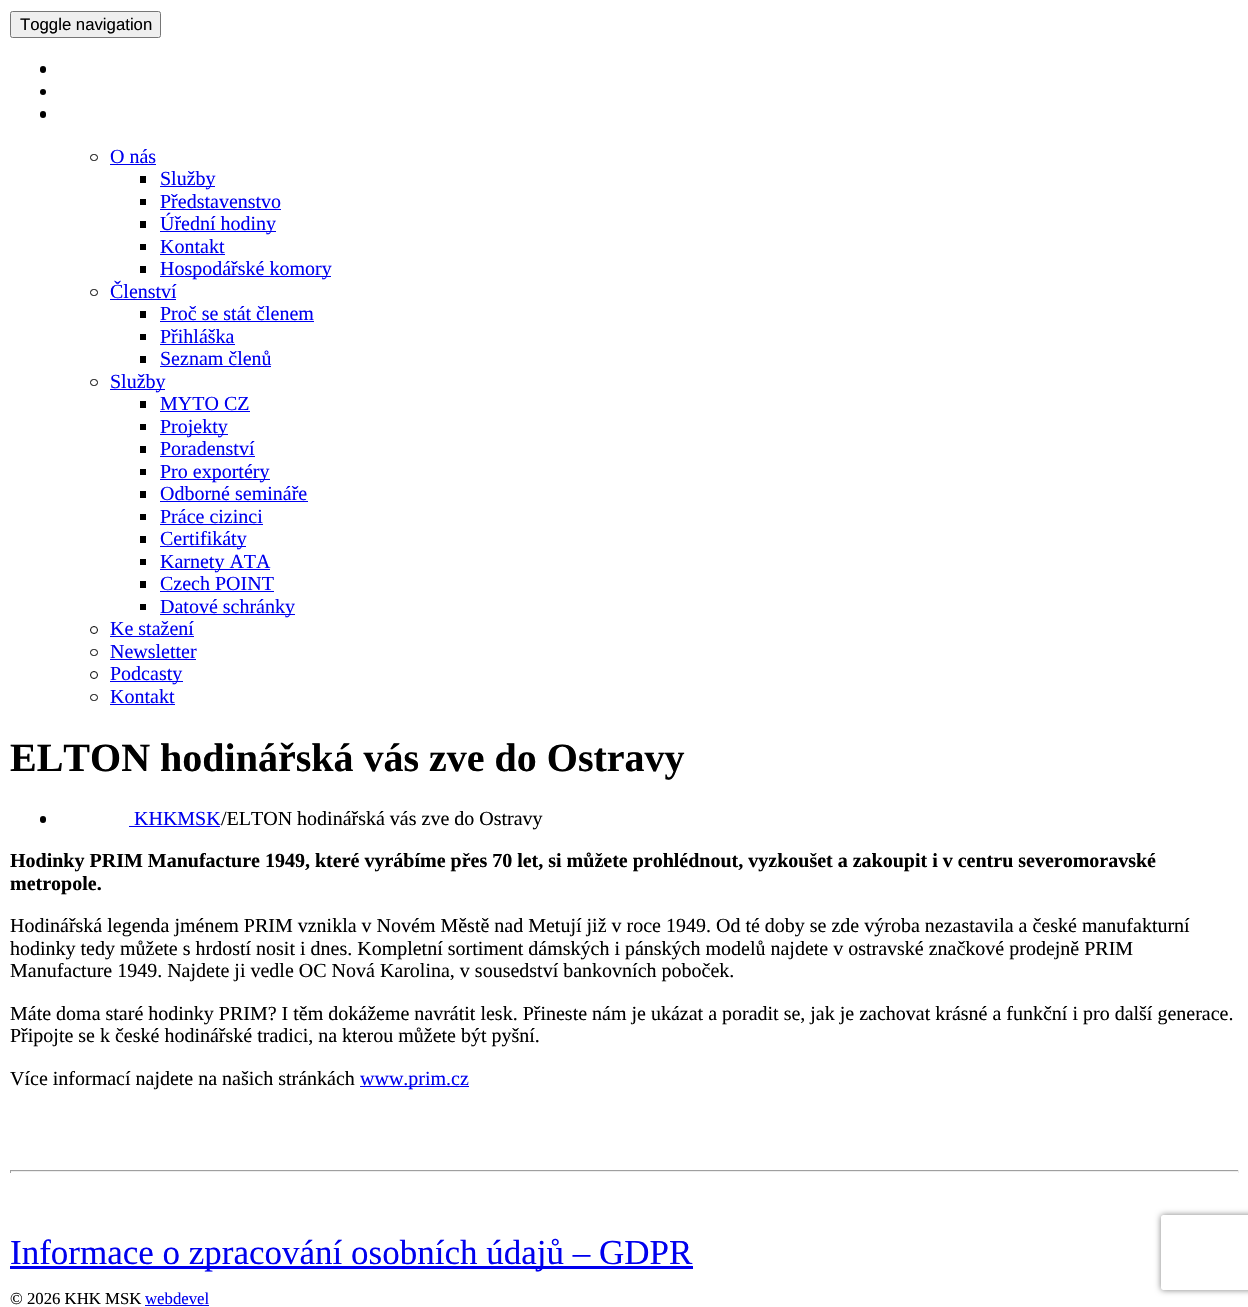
void draw(SkCanvas* canvas) {
    SkPaint paint;
    paint.setAntiAlias(true);
    canvas->clear(0xFFFFFFFF);
    paint.setColor(0xFFEFEFEF);
    canvas->drawRoundRect(SkRect::MakeXYWH(10.5f, 11.5f, 150, 26), 2, 2, paint);
    paint.setStyle(SkPaint::kStroke_Style);
    paint.setStrokeWidth(1);
    paint.setColor(0xFF767676);
    canvas->drawRoundRect(SkRect::MakeXYWH(10.5f, 11.5f, 150, 26), 2, 2, paint);
    SkFont font1(fontMgr->matchFamilyStyle("Liberation Sans", SkFontStyle::Normal()), 16.75f);
    font1.setSubpixel(true);
    paint.setStyle(SkPaint::kFill_Style);
    paint.setColor(0xFF000000);
    canvas->drawString("Toggle navigation", 20, 30, font1, paint);
    canvas->drawRoundRect(SkRect::MakeXYWH(40, 66, 6, 7), 3, 3, paint);
    canvas->drawCircle(43, 92, 3, paint);
    canvas->drawRoundRect(SkRect::MakeXYWH(40, 111, 6, 7), 3, 3, paint);
    paint.setStyle(SkPaint::kStroke_Style);
    canvas->drawRoundRect(SkRect::MakeXYWH(90.5f, 154.5f, 7, 6), 3, 3, paint);
    SkFont font2(fontMgr->matchFamilyStyle("Liberation Serif", SkFontStyle::Normal()), 20);
    font2.setSubpixel(true);
    paint.setStyle(SkPaint::kFill_Style);
    paint.setColor(0xFF0000EE);
    canvas->drawString("O nás", 110, 163, font2, paint);
    canvas->drawRect(SkRect::MakeXYWH(110, 164, 46, 1), paint);
    paint.setColor(0xFF000000);
    canvas->drawRect(SkRect::MakeXYWH(140, 176, 6, 7), paint);
    paint.setColor(0xFF0000EE);
    canvas->drawRect(SkRect::MakeXYWH(160, 186, 55, 1), paint);
    canvas->drawString("Služby", 160, 185, font2, paint);
    paint.setColor(0xFF000000);
    canvas->drawRect(SkRect::MakeXYWH(140, 199, 6, 6), paint);
    paint.setColor(0xFF0000EE);
    canvas->drawString("Představenstvo", 160, 208, font2, paint);
    canvas->drawRect(SkRect::MakeXYWH(160, 209, 121, 1), paint);
    paint.setColor(0xFF000000);
    canvas->drawRect(SkRect::MakeXYWH(140, 221, 6, 7), paint);
    paint.setColor(0xFF0000EE);
    canvas->drawRect(SkRect::MakeXYWH(160, 231, 116, 1), paint);
    canvas->drawString("Úřední hodiny", 160, 230, font2, paint);
    paint.setColor(0xFF000000);
    canvas->drawRect(SkRect::MakeXYWH(140, 244, 6, 6), paint);
    paint.setColor(0xFF0000EE);
    canvas->drawString("Kontakt", 160, 253, font2, paint);
    canvas->drawRect(SkRect::MakeXYWH(160, 254, 65, 1), paint);
    paint.setColor(0xFF000000);
    canvas->drawRect(SkRect::MakeXYWH(140, 266, 6, 7), paint);
    paint.setColor(0xFF0000EE);
    canvas->drawRect(SkRect::MakeXYWH(160, 276, 171, 1), paint);
    canvas->drawString("Hospodářské komory", 160, 275, font2, paint);
    paint.setStyle(SkPaint::kStroke_Style);
    paint.setColor(0xFF000000);
    canvas->drawRoundRect(SkRect::MakeXYWH(90.5f, 289.5f, 7, 6), 3, 3, paint);
    paint.setStyle(SkPaint::kFill_Style);
    paint.setColor(0xFF0000EE);
    canvas->drawString("Členství", 110, 298, font2, paint);
    canvas->drawRect(SkRect::MakeXYWH(110, 299, 66, 1), paint);
    paint.setColor(0xFF000000);
    canvas->drawRect(SkRect::MakeXYWH(140, 311, 6, 7), paint);
    paint.setColor(0xFF0000EE);
    canvas->drawString("Proč se stát členem", 160, 320, font2, paint);
    canvas->drawRect(SkRect::MakeXYWH(160, 321, 154, 1), paint);
    paint.setColor(0xFF000000);
    canvas->drawRect(SkRect::MakeXYWH(140, 334, 6, 6), paint);
    paint.setColor(0xFF0000EE);
    canvas->drawString("Přihláška", 160, 343, font2, paint);
    canvas->drawRect(SkRect::MakeXYWH(160, 344, 75, 1), paint);
    paint.setColor(0xFF000000);
    canvas->drawRect(SkRect::MakeXYWH(140, 356, 6, 7), paint);
    paint.setColor(0xFF0000EE);
    canvas->drawString("Seznam členů", 160, 365, font2, paint);
    canvas->drawRect(SkRect::MakeXYWH(160, 366, 111, 1), paint);
    paint.setStyle(SkPaint::kStroke_Style);
    paint.setColor(0xFF000000);
    canvas->drawRoundRect(SkRect::MakeXYWH(90.5f, 379.5f, 7, 6), 3, 3, paint);
    paint.setStyle(SkPaint::kFill_Style);
    paint.setColor(0xFF0000EE);
    canvas->drawRect(SkRect::MakeXYWH(110, 389, 55, 1), paint);
    canvas->drawString("Služby", 110, 388, font2, paint);
    paint.setColor(0xFF000000);
    canvas->drawRect(SkRect::MakeXYWH(140, 401, 6, 7), paint);
    paint.setColor(0xFF0000EE);
    canvas->drawString("MYTO CZ", 160, 410, font2, paint);
    canvas->drawRect(SkRect::MakeXYWH(160, 411, 90, 1), paint);
    paint.setColor(0xFF000000);
    canvas->drawRect(SkRect::MakeXYWH(140, 424, 6, 6), paint);
    paint.setColor(0xFF0000EE);
    canvas->drawRect(SkRect::MakeXYWH(160, 434, 68, 1), paint);
    canvas->drawString("Projekty", 160, 433, font2, paint);
    paint.setColor(0xFF000000);
    canvas->drawRect(SkRect::MakeXYWH(140, 446, 6, 7), paint);
    paint.setColor(0xFF0000EE);
    canvas->drawString("Poradenství", 160, 455, font2, paint);
    canvas->drawRect(SkRect::MakeXYWH(160, 456, 95, 1), paint);
    paint.setColor(0xFF000000);
    canvas->drawRect(SkRect::MakeXYWH(140, 469, 6, 6), paint);
    paint.setColor(0xFF0000EE);
    canvas->drawRect(SkRect::MakeXYWH(160, 479, 110, 1), paint);
    canvas->drawString("Pro exportéry", 160, 478, font2, paint);
    paint.setColor(0xFF000000);
    canvas->drawRect(SkRect::MakeXYWH(140, 491, 6, 7), paint);
    paint.setColor(0xFF0000EE);
    canvas->drawString("Odborné semináře", 160, 500, font2, paint);
    canvas->drawRect(SkRect::MakeXYWH(160, 501, 148, 1), paint);
    paint.setColor(0xFF000000);
    canvas->drawRect(SkRect::MakeXYWH(140, 514, 6, 6), paint);
    paint.setColor(0xFF0000EE);
    canvas->drawString("Práce cizinci", 160, 523, font2, paint);
    canvas->drawRect(SkRect::MakeXYWH(160, 524, 103, 1), paint);
    paint.setColor(0xFF000000);
    canvas->drawRect(SkRect::MakeXYWH(140, 536, 6, 7), paint);
    paint.setColor(0xFF0000EE);
    canvas->drawRect(SkRect::MakeXYWH(160, 546, 86, 1), paint);
    canvas->drawString("Certifikáty", 160, 545, font2, paint);
    paint.setColor(0xFF000000);
    canvas->drawRect(SkRect::MakeXYWH(140, 559, 6, 6), paint);
    paint.setColor(0xFF0000EE);
    canvas->drawRect(SkRect::MakeXYWH(160, 569, 110, 1), paint);
    canvas->drawString("Karnety ATA", 160, 568, font2, paint);
    paint.setColor(0xFF000000);
    canvas->drawRect(SkRect::MakeXYWH(140, 581, 6, 7), paint);
    paint.setColor(0xFF0000EE);
    canvas->drawString("Czech POINT", 160, 590, font2, paint);
    canvas->drawRect(SkRect::MakeXYWH(160, 591, 114, 1), paint);
    paint.setColor(0xFF000000);
    canvas->drawRect(SkRect::MakeXYWH(140, 604, 6, 6), paint);
    paint.setColor(0xFF0000EE);
    canvas->drawRect(SkRect::MakeXYWH(160, 614, 135, 1), paint);
    canvas->drawString("Datové schránky", 160, 613, font2, paint);
    paint.setStyle(SkPaint::kStroke_Style);
    paint.setColor(0xFF000000);
    canvas->drawCircle(94, 630, 3.5f, paint);
    paint.setStyle(SkPaint::kFill_Style);
    paint.setColor(0xFF0000EE);
    canvas->drawString("Ke stažení", 110, 635, font2, paint);
    canvas->drawRect(SkRect::MakeXYWH(110, 636, 84, 1), paint);
    paint.setStyle(SkPaint::kStroke_Style);
    paint.setColor(0xFF000000);
    canvas->drawRoundRect(SkRect::MakeXYWH(90.5f, 649.5f, 7, 6), 3, 3, paint);
    paint.setStyle(SkPaint::kFill_Style);
    paint.setColor(0xFF0000EE);
    canvas->drawString("Newsletter", 110, 658, font2, paint);
    canvas->drawRect(SkRect::MakeXYWH(110, 659, 86, 1), paint);
    paint.setStyle(SkPaint::kStroke_Style);
    paint.setColor(0xFF000000);
    canvas->drawCircle(94, 675, 3.5f, paint);
    paint.setStyle(SkPaint::kFill_Style);
    paint.setColor(0xFF0000EE);
    canvas->drawRect(SkRect::MakeXYWH(110, 681, 73, 1), paint);
    canvas->drawString("Podcasty", 110, 680, font2, paint);
    paint.setStyle(SkPaint::kStroke_Style);
    paint.setColor(0xFF000000);
    canvas->drawRoundRect(SkRect::MakeXYWH(90.5f, 694.5f, 7, 6), 3, 3, paint);
    paint.setStyle(SkPaint::kFill_Style);
    paint.setColor(0xFF0000EE);
    canvas->drawString("Kontakt", 110, 703, font2, paint);
    canvas->drawRect(SkRect::MakeXYWH(110, 704, 65, 1), paint);
    SkFont font3(fontMgr->matchFamilyStyle("Liberation Serif", SkFontStyle::Bold()), 40);
    font3.setSubpixel(true);
    paint.setColor(0xFF000000);
    canvas->drawString("ELTON hodinářská vás zve do Ostravy", 10, 771, font3, paint);
    canvas->drawRoundRect(SkRect::MakeXYWH(40, 816, 6, 7), 3, 3, paint);
    paint.setColor(0xFF0000EE);
    canvas->drawString("KHKMSK", 134, 825, font2, paint);
    canvas->drawRect(SkRect::MakeXYWH(129, 826, 91, 1), paint);
    paint.setColor(0xFF000000);
    canvas->drawString("/ELTON hodinářská vás zve do Ostravy", 221, 825, font2, paint);
    SkFont font4(fontMgr->matchFamilyStyle("Liberation Serif", SkFontStyle::Bold()), 20);
    font4.setSubpixel(true);
    canvas->drawString("Hodinky PRIM Manufacture 1949, které vyrábíme přes 70 let, si můžete prohlédnout, vyzkoušet a zakoupit i v centru severomoravské", 10, 867, font4, paint);
    canvas->drawString("metropole.", 10, 890, font4, paint);
    canvas->drawString("Hodinářská legenda jménem PRIM vznikla v Novém Městě nad Metují již v roce 1949. Od té doby se zde výroba nezastavila a české manufakturní", 10, 932, font2, paint);
    canvas->drawString("hodinky tedy můžete s hrdostí nosit i dnes. Kompletní sortiment dámských i pánských modelů najdete v ostravské značkové prodejně PRIM", 10, 955, font2, paint);
    canvas->drawString("Manufacture 1949. Najdete ji vedle OC Nová Karolina, v sousedství bankovních poboček.", 10, 977, font2, paint);
    canvas->drawString("Máte doma staré hodinky PRIM? I těm dokážeme navrátit lesk. Přineste nám je ukázat a poradit se, jak je zachovat krásné a funkční i pro další generace.", 10, 1020, font2, paint);
    canvas->drawString("Připojte se k české hodinářské tradici, na kterou můžete být pyšní.", 10, 1042, font2, paint);
    canvas->drawString("Více informací najdete na našich stránkách", 10, 1085, font2, paint);
    paint.setColor(0xFF0000EE);
    canvas->drawRect(SkRect::MakeXYWH(360, 1086, 109, 1), paint);
    canvas->drawString("www.prim.cz", 360, 1085, font2, paint);
    paint.setColor(0xFF9F9F9F);
    canvas->drawRect(SkRect::MakeXYWH(10, 1170, 1229, 1), paint);
    paint.setColor(0xFFEEEEEE);
    canvas->drawRect(SkRect::MakeXYWH(1238, 1170, 1, 3), paint);
    canvas->drawRect(SkRect::MakeXYWH(10, 1171, 1229, 1), paint);
    paint.setColor(0xFF9F9F9F);
    canvas->drawRect(SkRect::MakeXYWH(10, 1170, 1, 3), paint);
    paint.setColor(0xFF0000EE);
    canvas->drawRect(SkRect::MakeXYWH(10, 1266, 683, 3), paint);
    SkFont font5(fontMgr->matchFamilyStyle("Liberation Serif", SkFontStyle::Normal()), 35);
    font5.setSubpixel(true);
    canvas->drawString("Informace o zpracování osobních údajů – GDPR", 10, 1264, font5, paint);
    SkFont font6(fontMgr->matchFamilyStyle("Liberation Serif", SkFontStyle::Normal()), 16.75f);
    font6.setSubpixel(true);
    paint.setColor(0xFF000000);
    canvas->drawString("© 2026 KHK MSK", 10, 1304, font6, paint);
    paint.setColor(0xFF0000EE);
    canvas->drawString("webdevel", 145, 1304, font6, paint);
    canvas->drawRect(SkRect::MakeXYWH(145, 1305, 64, 1), paint);
    canvas->save();
    canvas->clipPath(SkPathBuilder(SkPathFillType::kEvenOdd).moveTo(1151, 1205).lineTo(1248, 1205).lineTo(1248, 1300).lineTo(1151, 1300).close().moveTo(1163.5f, 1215).lineTo(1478.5f, 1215).cubicTo(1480, 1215, 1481, 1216, 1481, 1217.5f).lineTo(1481, 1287.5f).cubicTo(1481, 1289, 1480, 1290, 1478.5f, 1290).lineTo(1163.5f, 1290).cubicTo(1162, 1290, 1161, 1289, 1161, 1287.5f).lineTo(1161, 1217.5f).cubicTo(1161, 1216, 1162, 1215, 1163.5f, 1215).close().detach(), true);
    paint.setColor(0xFF808080);
    paint.setMaskFilter(SkMaskFilter::MakeBlur(kNormal_SkBlurStyle, 3));
    canvas->drawRoundRect(SkRect::MakeXYWH(1161, 1215, 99, 75), 2.5f, 2.5f, paint);
    paint.setMaskFilter(nullptr);
    canvas->restore();
}
